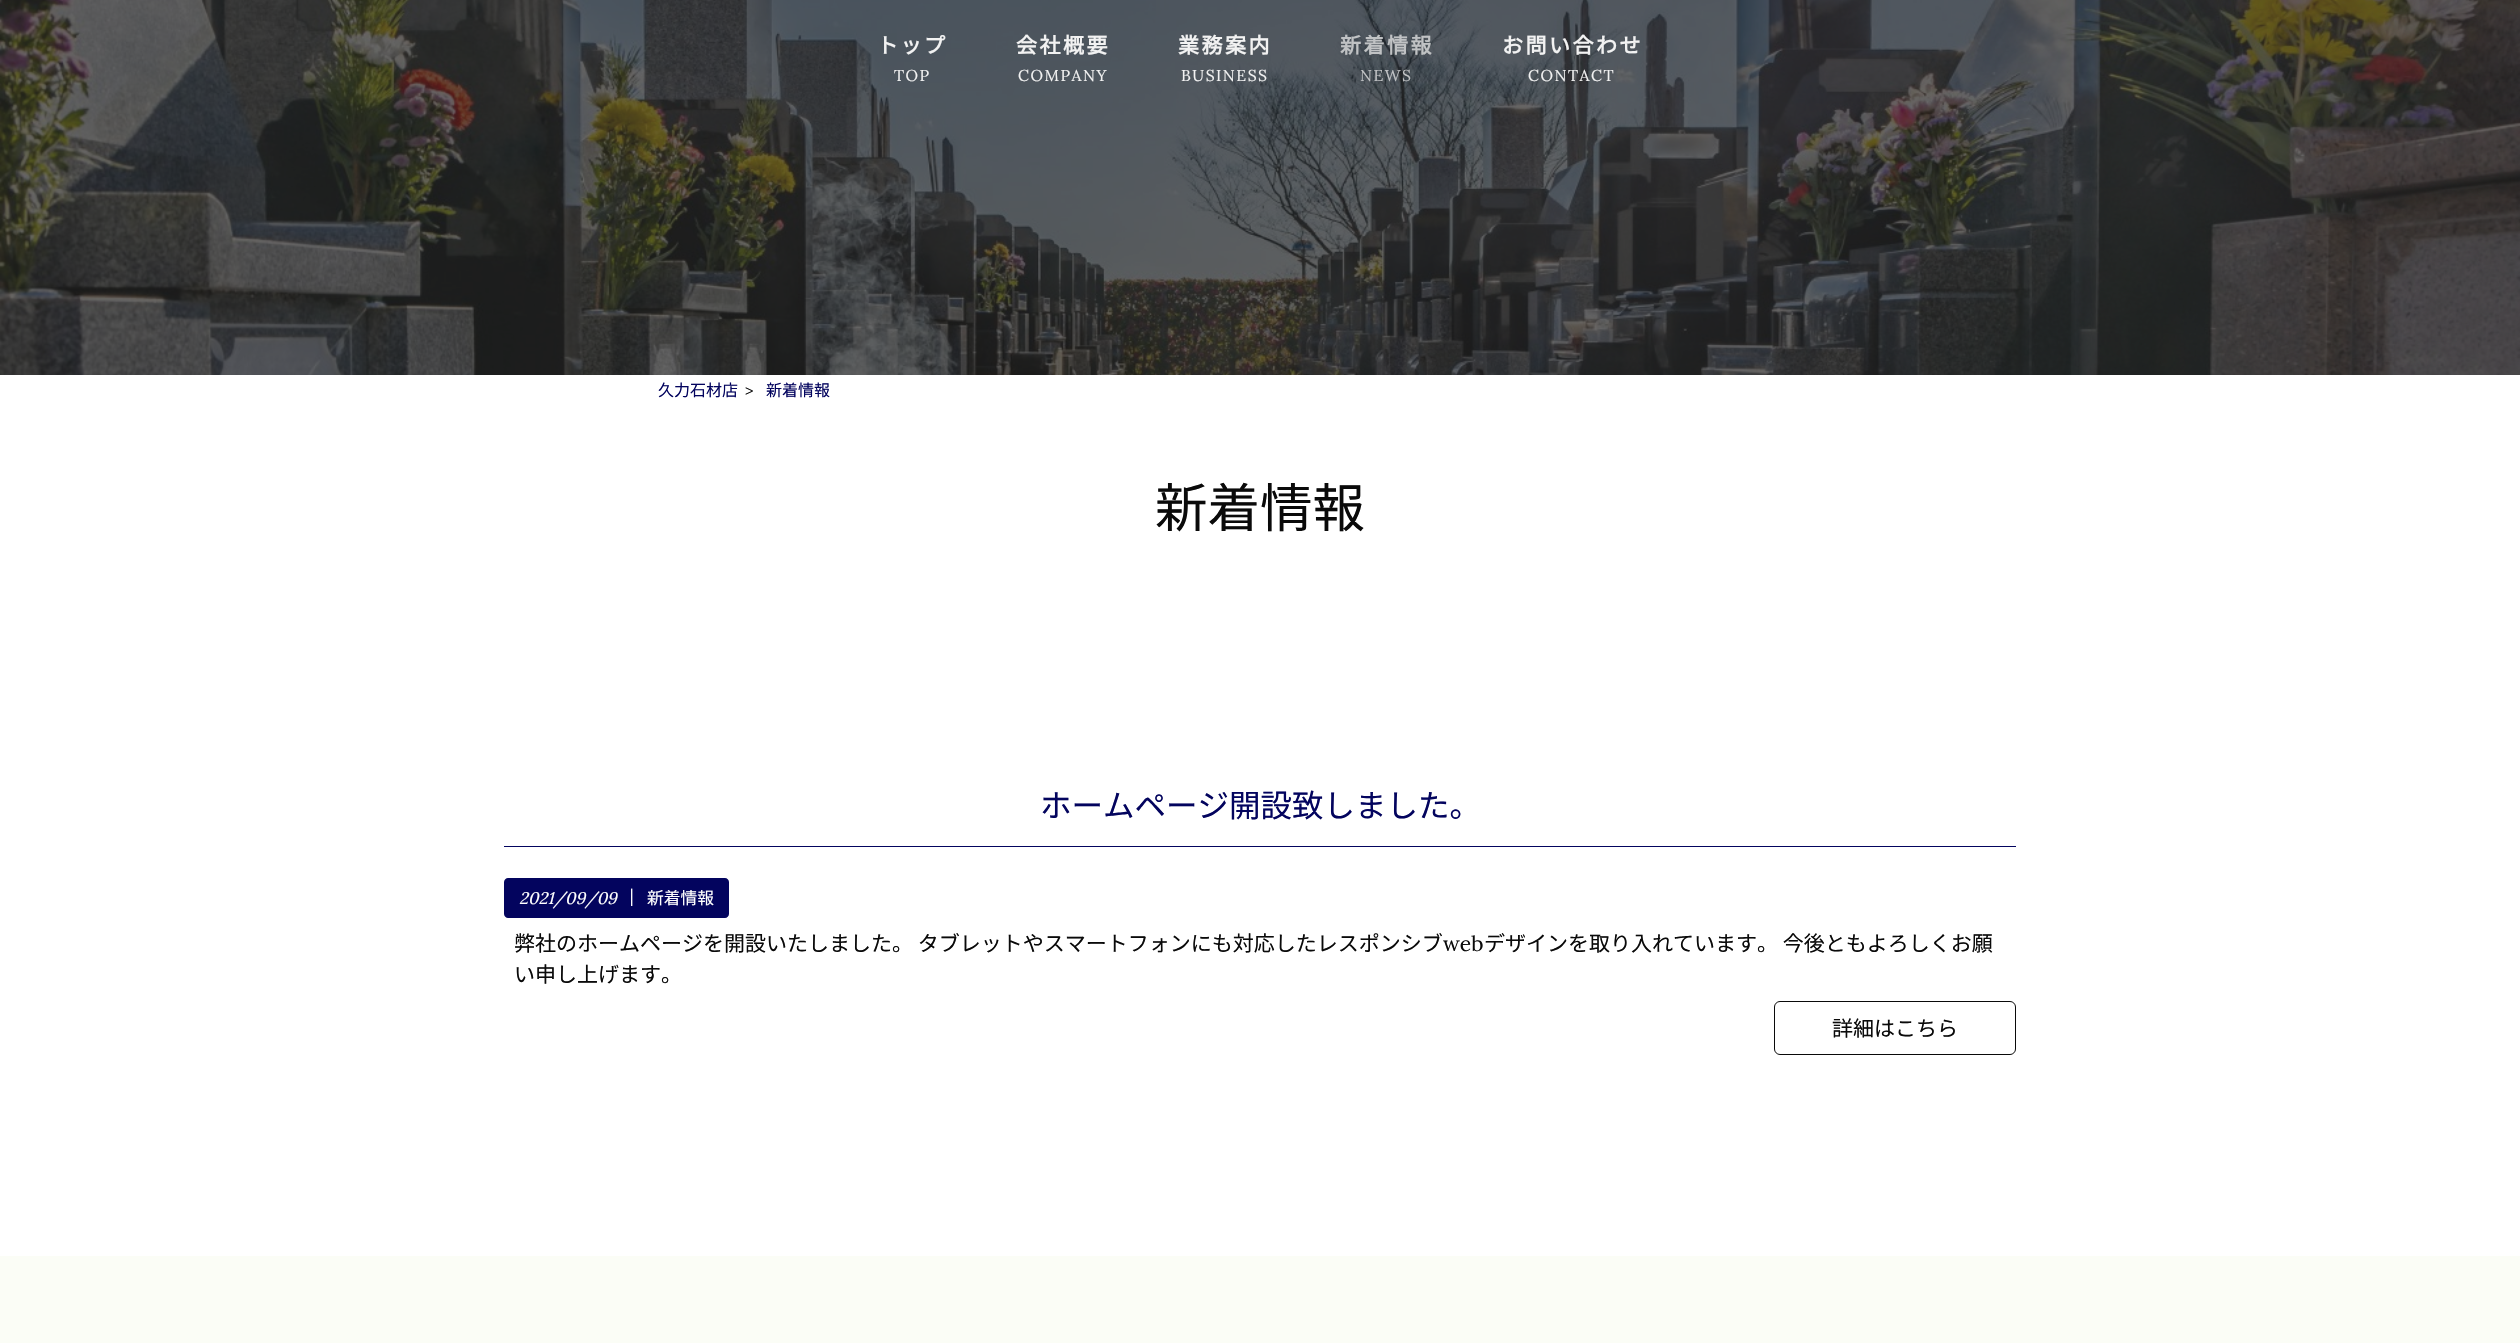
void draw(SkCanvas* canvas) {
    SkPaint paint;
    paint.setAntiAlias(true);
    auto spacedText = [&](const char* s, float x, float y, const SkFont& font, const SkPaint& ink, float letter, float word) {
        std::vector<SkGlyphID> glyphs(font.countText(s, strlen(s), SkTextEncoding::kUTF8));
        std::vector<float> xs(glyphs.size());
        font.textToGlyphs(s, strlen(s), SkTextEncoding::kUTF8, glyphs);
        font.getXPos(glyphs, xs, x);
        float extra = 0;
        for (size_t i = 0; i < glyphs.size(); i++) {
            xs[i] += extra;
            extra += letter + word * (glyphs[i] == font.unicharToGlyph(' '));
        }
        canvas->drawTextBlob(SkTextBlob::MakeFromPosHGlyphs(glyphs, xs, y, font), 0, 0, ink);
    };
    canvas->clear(0xFFFFFFFF);
    canvas->drawImageRect(SkImages::DeferredFromEncodedData(SkData::MakeFromFileName("img1.png")), SkRect::MakeXYWH(0, 0, 2520, 375), SkSamplingOptions());
    SkFont font1(fontMgr->matchFamilyStyle("Noto Sans JP", SkFontStyle::Bold()), 21);
    font1.setSubpixel(true);
    paint.setColor(0xFFF2F2F2);
    spacedText("トップ", 877, 53, font1, paint, 2.5f, 0);
    SkFont font2(fontMgr->matchFamilyStyle("Lora", SkFontStyle::Normal()), 15.75f);
    font2.setSubpixel(true);
    spacedText("TOP", 894, 81, font2, paint, 1.5f, 0);
    spacedText("会社概要", 1016, 53, font1, paint, 2.5f, 0);
    spacedText("COMPANY", 1018, 81, font2, paint, 1.5f, 0);
    spacedText("業務案内", 1178, 53, font1, paint, 2.5f, 0);
    spacedText("BUSINESS", 1181, 81, font2, paint, 1.5f, 0);
    paint.setColor(0xFFC0C2C4);
    spacedText("新着情報", 1340, 53, font1, paint, 2.5f, 0);
    spacedText("NEWS", 1360, 81, font2, paint, 1.5f, 0);
    paint.setColor(0xFFF2F2F2);
    spacedText("お問い合わせ", 1502, 53, font1, paint, 2.5f, 0);
    spacedText("CONTACT", 1528, 81, font2, paint, 1.5f, 0);
    SkFont font3(fontMgr->matchFamilyStyle("Noto Sans JP", SkFontStyle(100, SkFontStyle::kNormal_Width, SkFontStyle::kUpright_Slant)), 16);
    font3.setSubpixel(true);
    paint.setColor(0xFF03045E);
    canvas->drawString("久力石材店", 658, 396, font3, paint);
    SkFont font4(fontMgr->matchFamilyStyle("Lora", SkFontStyle::Normal()), 16);
    font4.setSubpixel(true);
    paint.setColor(0xFF0A0A0A);
    canvas->drawString(">", 745, 396, font4, paint);
    paint.setColor(0xFF03045E);
    canvas->drawString("新着情報", 766, 396, font3, paint);
    SkFont font5(fontMgr->matchFamilyStyle("Noto Sans JP", SkFontStyle(100, SkFontStyle::kNormal_Width, SkFontStyle::kUpright_Slant)), 52.5f);
    font5.setSubpixel(true);
    paint.setColor(0xFF0A0A0A);
    canvas->drawString("新着情報", 1155, 527, font5, paint);
    paint.setColor(0xFF03045E);
    canvas->drawRect(SkRect::MakeXYWH(504, 846, 1512, 1), paint);
    SkFont font6(fontMgr->matchFamilyStyle("Noto Sans JP", SkFontStyle(100, SkFontStyle::kNormal_Width, SkFontStyle::kUpright_Slant)), 31.5f);
    font6.setSubpixel(true);
    canvas->drawString("ホームページ開設致しました。", 1040, 817, font6, paint);
    canvas->drawPath(SkPathBuilder().moveTo(508, 878).lineTo(633, 878).lineTo(633, 918).lineTo(508, 918).cubicTo(506, 918, 504, 916, 504, 914).lineTo(504, 882).cubicTo(504, 880, 506, 878, 508, 878).close().detach(), paint);
    SkFont font7(fontMgr->matchFamilyStyle("Lora", SkFontStyle::Italic()), 16.75f);
    font7.setSubpixel(true);
    paint.setColor(0xFFFFFFFF);
    canvas->drawString("2021/09/09", 519, 904, font7, paint);
    SkFont font8(fontMgr->matchFamilyStyle("Noto Sans JP", SkFontStyle::Bold()), 16.75f);
    font8.setSubpixel(true);
    canvas->drawString("｜", 623, 904, font8, paint);
    paint.setColor(0xFF03045E);
    canvas->drawPath(SkPathBuilder().moveTo(633, 878).lineTo(725, 878).cubicTo(727, 878, 729, 880, 729, 882).lineTo(729, 914).cubicTo(729, 916, 727, 918, 725, 918).lineTo(633, 918).close().detach(), paint);
    SkFont font9(fontMgr->matchFamilyStyle("Noto Sans JP", SkFontStyle(100, SkFontStyle::kNormal_Width, SkFontStyle::kUpright_Slant)), 16.75f);
    font9.setSubpixel(true);
    paint.setColor(0xFFFFFFFF);
    canvas->drawString("新着情報", 647, 904, font9, paint);
    SkFont font10(fontMgr->matchFamilyStyle("Noto Sans JP", SkFontStyle(100, SkFontStyle::kNormal_Width, SkFontStyle::kUpright_Slant)), 21);
    font10.setSubpixel(true);
    paint.setColor(0xFF0A0A0A);
    canvas->drawString("弊社のホームページを開設いたしました。 タブレットやスマートフォンにも対応したレスポンシブ", 514, 951, font10, paint);
    SkFont font11(fontMgr->matchFamilyStyle("Lora", SkFontStyle::Normal()), 21);
    font11.setSubpixel(true);
    canvas->drawString("web", 1443, 951, font11, paint);
    canvas->drawString("デザインを取り入れています。 今後ともよろしくお願", 1484, 951, font10, paint);
    canvas->drawString("い申し上げます。", 514, 982, font10, paint);
    paint.setStyle(SkPaint::kStroke_Style);
    paint.setStrokeWidth(1);
    canvas->drawRoundRect(SkRect::MakeXYWH(1774.5f, 1001.5f, 241, 53), 5.5f, 5.5f, paint);
    paint.setStyle(SkPaint::kFill_Style);
    canvas->drawString("詳細はこちら", 1832, 1036, font10, paint);
    paint.setColor(0xFFFBFDF6);
    canvas->drawRect(SkRect::MakeXYWH(0, 1256, 2520, 87), paint);
}
